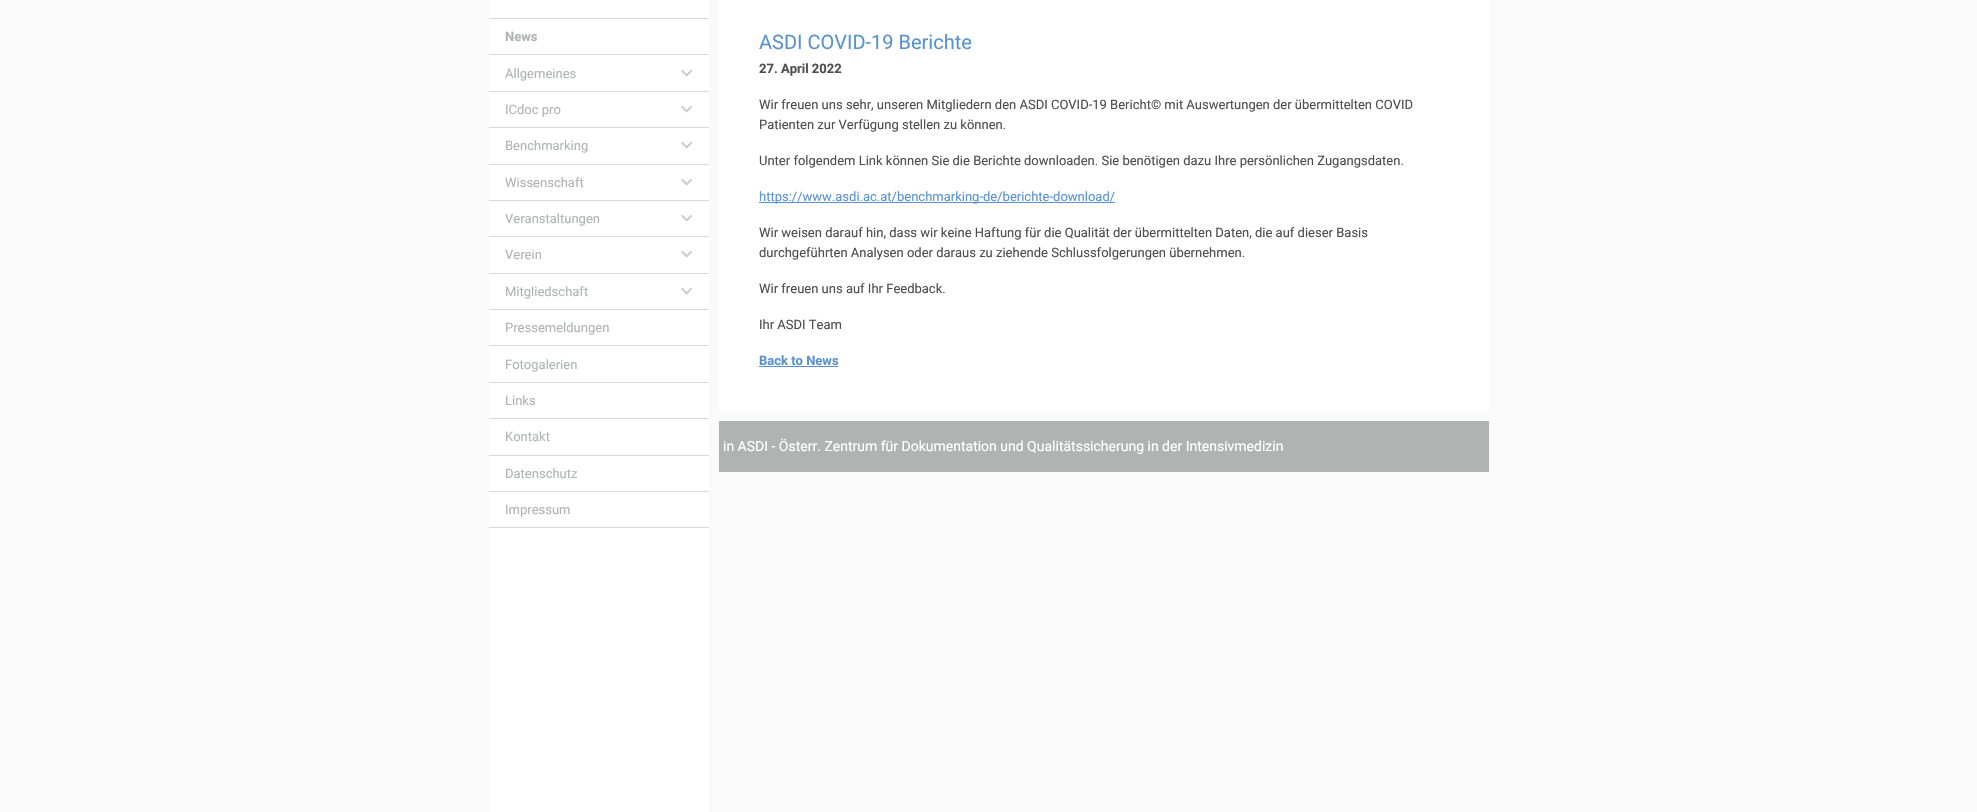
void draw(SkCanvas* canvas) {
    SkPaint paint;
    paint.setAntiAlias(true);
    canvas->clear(0xFFFAFAFA);
    paint.setColor(0xFFFFFFFF);
    canvas->drawRect(SkRect::MakeXYWH(489, 0, 220, 812), paint);
    paint.setColor(0xFFD8D9D9);
    canvas->drawRect(SkRect::MakeXYWH(489, 18, 220, 1), paint);
    canvas->drawRect(SkRect::MakeXYWH(489, 54, 220, 1), paint);
    SkFont font1(fontMgr->matchFamilyStyle("Roboto", SkFontStyle::Bold()), 13);
    font1.setSubpixel(true);
    paint.setColor(0xFFB1B3B3);
    canvas->drawString("News", 505, 41, font1, paint);
    paint.setColor(0xFFD8D9D9);
    canvas->drawRect(SkRect::MakeXYWH(489, 91, 220, 1), paint);
    SkFont font2(fontMgr->matchFamilyStyle("Roboto", SkFontStyle::Normal()), 13);
    font2.setSubpixel(true);
    paint.setColor(0xFFB1B3B3);
    canvas->drawString("Allgemeines", 505, 78, font2, paint);
    canvas->drawImageRect(SkImages::DeferredFromEncodedData(SkData::MakeFromFileName("img1.png")), SkRect::MakeXYWH(681, 69, 11, 8), SkSamplingOptions());
    paint.setColor(0xFFD8D9D9);
    canvas->drawRect(SkRect::MakeXYWH(489, 127, 220, 1), paint);
    paint.setColor(0xFFB1B3B3);
    canvas->drawString("ICdoc pro", 505, 114, font2, paint);
    canvas->drawImageRect(SkImages::DeferredFromEncodedData(SkData::MakeFromFileName("img1.png")), SkRect::MakeXYWH(681, 105, 11, 8), SkSamplingOptions());
    paint.setColor(0xFFD8D9D9);
    canvas->drawRect(SkRect::MakeXYWH(489, 164, 220, 1), paint);
    paint.setColor(0xFFB1B3B3);
    canvas->drawString("Benchmarking", 505, 150, font2, paint);
    canvas->drawImageRect(SkImages::DeferredFromEncodedData(SkData::MakeFromFileName("img1.png")), SkRect::MakeXYWH(681, 141, 11, 8), SkSamplingOptions());
    paint.setColor(0xFFD8D9D9);
    canvas->drawRect(SkRect::MakeXYWH(489, 200, 220, 1), paint);
    paint.setColor(0xFFB1B3B3);
    canvas->drawString("Wissenschaft", 505, 187, font2, paint);
    canvas->drawImageRect(SkImages::DeferredFromEncodedData(SkData::MakeFromFileName("img1.png")), SkRect::MakeXYWH(681, 178, 11, 8), SkSamplingOptions());
    paint.setColor(0xFFD8D9D9);
    canvas->drawRect(SkRect::MakeXYWH(489, 236, 220, 1), paint);
    paint.setColor(0xFFB1B3B3);
    canvas->drawString("Veranstaltungen", 505, 223, font2, paint);
    canvas->drawImageRect(SkImages::DeferredFromEncodedData(SkData::MakeFromFileName("img1.png")), SkRect::MakeXYWH(681, 214, 11, 8), SkSamplingOptions());
    paint.setColor(0xFFD8D9D9);
    canvas->drawRect(SkRect::MakeXYWH(489, 273, 220, 1), paint);
    paint.setColor(0xFFB1B3B3);
    canvas->drawString("Verein", 505, 259, font2, paint);
    canvas->drawImageRect(SkImages::DeferredFromEncodedData(SkData::MakeFromFileName("img1.png")), SkRect::MakeXYWH(681, 250, 11, 8), SkSamplingOptions());
    paint.setColor(0xFFD8D9D9);
    canvas->drawRect(SkRect::MakeXYWH(489, 309, 220, 1), paint);
    paint.setColor(0xFFB1B3B3);
    canvas->drawString("Mitgliedschaft", 505, 296, font2, paint);
    canvas->drawImageRect(SkImages::DeferredFromEncodedData(SkData::MakeFromFileName("img1.png")), SkRect::MakeXYWH(681, 287, 11, 8), SkSamplingOptions());
    paint.setColor(0xFFD8D9D9);
    canvas->drawRect(SkRect::MakeXYWH(489, 345, 220, 1), paint);
    paint.setColor(0xFFB1B3B3);
    canvas->drawString("Pressemeldungen", 505, 332, font2, paint);
    paint.setColor(0xFFD8D9D9);
    canvas->drawRect(SkRect::MakeXYWH(489, 382, 220, 1), paint);
    paint.setColor(0xFFB1B3B3);
    canvas->drawString("Fotogalerien", 505, 369, font2, paint);
    paint.setColor(0xFFD8D9D9);
    canvas->drawRect(SkRect::MakeXYWH(489, 418, 220, 1), paint);
    paint.setColor(0xFFB1B3B3);
    canvas->drawString("Links", 505, 405, font2, paint);
    paint.setColor(0xFFD8D9D9);
    canvas->drawRect(SkRect::MakeXYWH(489, 455, 220, 1), paint);
    paint.setColor(0xFFB1B3B3);
    canvas->drawString("Kontakt", 505, 441, font2, paint);
    paint.setColor(0xFFD8D9D9);
    canvas->drawRect(SkRect::MakeXYWH(489, 491, 220, 1), paint);
    paint.setColor(0xFFB1B3B3);
    canvas->drawString("Datenschutz", 505, 478, font2, paint);
    paint.setColor(0xFFD8D9D9);
    canvas->drawRect(SkRect::MakeXYWH(489, 527, 220, 1), paint);
    paint.setColor(0xFFB1B3B3);
    canvas->drawString("Impressum", 505, 514, font2, paint);
    paint.setColor(0xFFFFFFFF);
    canvas->drawRect(SkRect::MakeXYWH(719, 0, 770, 411), paint);
    SkFont font3(fontMgr->matchFamilyStyle("Roboto", SkFontStyle::Normal()), 20);
    font3.setSubpixel(true);
    paint.setColor(0xFF5993CD);
    canvas->drawString("ASDI COVID-19 Berichte", 759, 49, font3, paint);
    paint.setColor(0xFF4D4D4D);
    canvas->drawString("27. April 2022", 759, 73, font1, paint);
    canvas->drawString("Wir freuen uns sehr, unseren Mitgliedern den ASDI COVID-19 Bericht© mit Auswertungen der übermittelten COVID", 759, 109, font2, paint);
    canvas->drawString("Patienten zur Verfügung stellen zu können.", 759, 129, font2, paint);
    canvas->drawString("Unter folgendem Link können Sie die Berichte downloaden. Sie benötigen dazu Ihre persönlichen Zugangsdaten.", 759, 165, font2, paint);
    paint.setColor(0xFF5993CD);
    canvas->drawRect(SkRect::MakeXYWH(759, 202, 356, 1), paint);
    canvas->drawString("https://www.asdi.ac.at/benchmarking-de/berichte-download/", 759, 201, font2, paint);
    paint.setColor(0xFF4D4D4D);
    canvas->drawString("Wir weisen darauf hin, dass wir keine Haftung für die Qualität der übermittelten Daten, die auf dieser Basis", 759, 237, font2, paint);
    canvas->drawString("durchgeführten Analysen oder daraus zu ziehende Schlussfolgerungen übernehmen.", 759, 257, font2, paint);
    canvas->drawString("Wir freuen uns auf Ihr Feedback.", 759, 293, font2, paint);
    canvas->drawString("Ihr ASDI Team", 759, 329, font2, paint);
    paint.setColor(0xFF5993CD);
    canvas->drawString("Back to News", 759, 365, font1, paint);
    canvas->drawRect(SkRect::MakeXYWH(759, 366, 79, 1), paint);
    paint.setColor(0xFFB1B3B3);
    canvas->drawRect(SkRect::MakeXYWH(719, 421, 770, 51), paint);
    SkFont font4(fontMgr->matchFamilyStyle("Roboto", SkFontStyle::Normal()), 14);
    font4.setSubpixel(true);
    paint.setColor(0xFFFFFFFF);
    canvas->drawString("in ASDI - Österr. Zentrum für Dokumentation und Qualitätssicherung in der Intensivmedizin", 723, 451, font4, paint);
}
